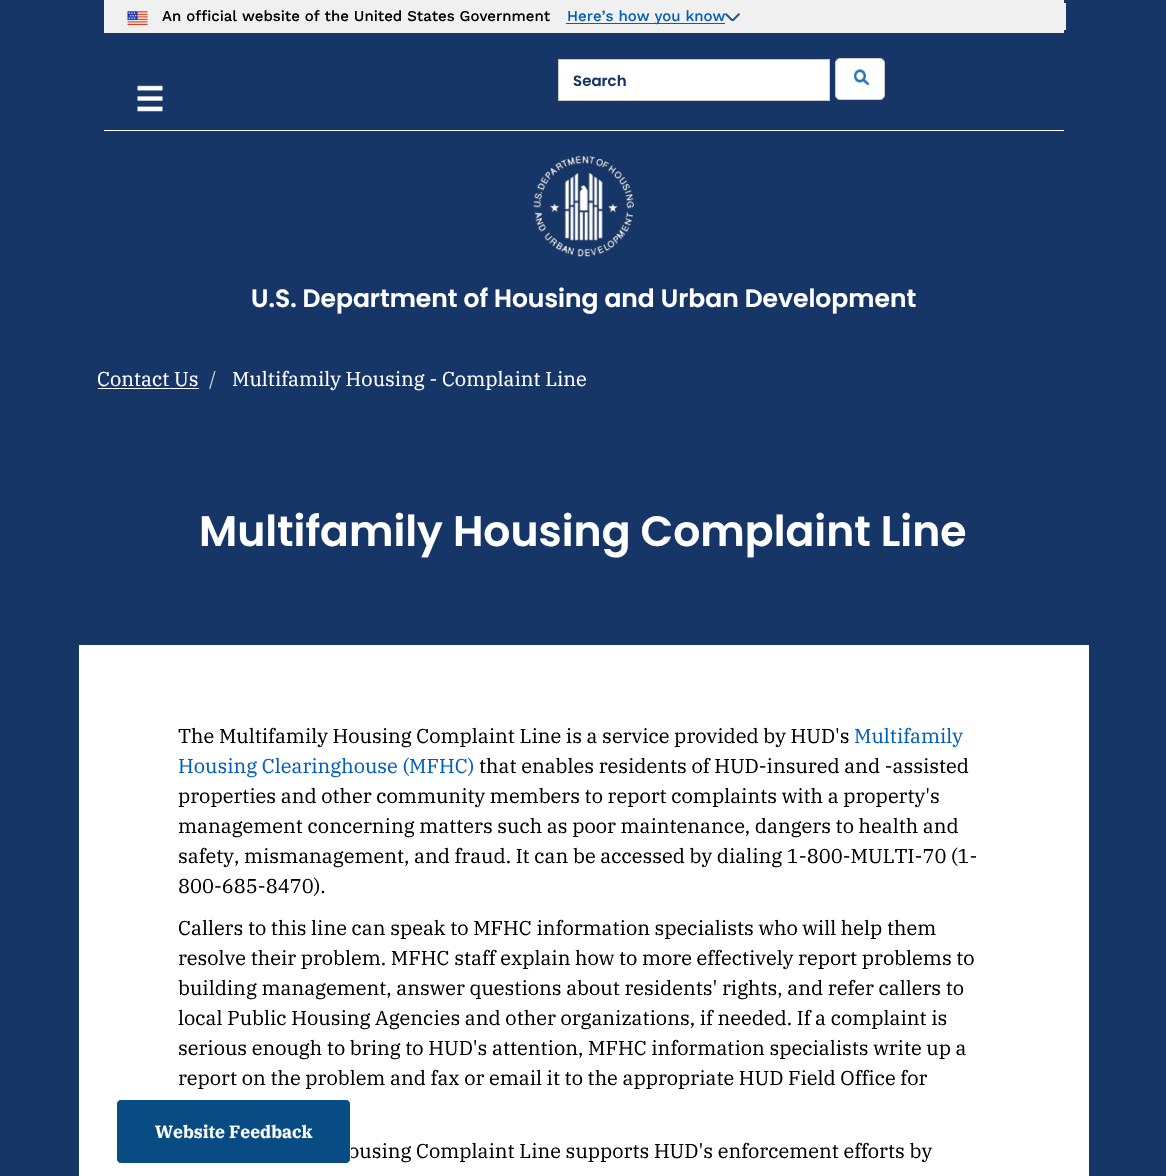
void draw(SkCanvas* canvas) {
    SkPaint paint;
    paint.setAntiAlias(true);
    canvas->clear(0xFF163667);
    paint.setColor(0xFFF0F0F0);
    canvas->drawRect(SkRect::MakeXYWH(104, 0, 960, 33), paint);
    canvas->drawRect(SkRect::MakeXYWH(1064, 3, 2, 27), paint);
    canvas->drawImageRect(SkImages::DeferredFromEncodedData(SkData::MakeFromFileName("img1.png")), SkRect::MakeXYWH(127, 11, 21, 14), SkSamplingOptions());
    SkFont font1(fontMgr->matchFamilyStyle("Work Sans", SkFontStyle(500, SkFontStyle::kNormal_Width, SkFontStyle::kUpright_Slant)), 15);
    font1.setSubpixel(true);
    paint.setColor(0xFF000000);
    canvas->drawString("An official website of the United States Government", 162, 21, font1, paint);
    paint.setColor(0xFF005EBD);
    canvas->drawRect(SkRect::MakeXYWH(566, 23, 159, 1), paint);
    canvas->drawString("Here’s how you know", 567, 21, font1, paint);
    canvas->drawImageRect(SkImages::DeferredFromEncodedData(SkData::MakeFromFileName("img2.png")), SkRect::MakeXYWH(725, 13, 15, 8), SkSamplingOptions());
    paint.setColor(0xFFFFFFFF);
    canvas->drawRect(SkRect::MakeXYWH(104, 130, 960, 1), paint);
    canvas->drawRect(SkRect::MakeXYWH(558.5f, 59.5f, 271, 41), paint);
    paint.setStyle(SkPaint::kStroke_Style);
    paint.setStrokeWidth(1);
    paint.setColor(0xFFCCCCCC);
    canvas->drawRect(SkRect::MakeXYWH(558.5f, 59.5f, 271, 41), paint);
    SkFont font2(fontMgr->matchFamilyStyle("Poppins", SkFontStyle(600, SkFontStyle::kNormal_Width, SkFontStyle::kUpright_Slant)), 15);
    font2.setSubpixel(true);
    paint.setStyle(SkPaint::kFill_Style);
    paint.setColor(0xFF163667);
    canvas->drawString("Search", 573, 86, font2, paint);
    paint.setColor(0xFFFFFFFF);
    canvas->drawRoundRect(SkRect::MakeXYWH(835.5f, 58.5f, 49, 41), 4.5f, 4.5f, paint);
    paint.setStyle(SkPaint::kStroke_Style);
    paint.setColor(0xFFCCCCCC);
    canvas->drawRoundRect(SkRect::MakeXYWH(835.5f, 58.5f, 49, 41), 4.5f, 4.5f, paint);
    canvas->drawImageRect(SkImages::DeferredFromEncodedData(SkData::MakeFromFileName("img3.png")), SkRect::MakeXYWH(853, 69, 16, 16), SkSamplingOptions());
    canvas->drawImageRect(SkImages::DeferredFromEncodedData(SkData::MakeFromFileName("img4.png")), SkRect::MakeXYWH(137, 85, 26, 27), SkSamplingOptions());
    canvas->drawImageRect(SkImages::DeferredFromEncodedData(SkData::MakeFromFileName("img5.png")), SkRect::MakeXYWH(533, 156, 101, 101), SkSamplingOptions());
    SkFont font3(fontMgr->matchFamilyStyle("Poppins", SkFontStyle(600, SkFontStyle::kNormal_Width, SkFontStyle::kUpright_Slant)), 25);
    font3.setSubpixel(true);
    paint.setStyle(SkPaint::kFill_Style);
    paint.setColor(0xFFFFFFFF);
    canvas->drawString("U.S. Department of Housing and Urban Development", 251, 307, font3, paint);
    SkFont font4(fontMgr->matchFamilyStyle("IBM Plex Serif", SkFontStyle::Normal()), 20);
    font4.setSubpixel(true);
    canvas->drawString("Contact Us", 97, 386, font4, paint);
    canvas->drawRect(SkRect::MakeXYWH(98, 388, 101, 1), paint);
    paint.setColor(0xFFCCCCCC);
    canvas->drawString("/", 209, 386, font4, paint);
    paint.setColor(0xFFFFFFFF);
    canvas->drawString("Multifamily Housing - Complaint Line", 232, 386, font4, paint);
    SkFont font5(fontMgr->matchFamilyStyle("Poppins", SkFontStyle(600, SkFontStyle::kNormal_Width, SkFontStyle::kUpright_Slant)), 42.5f);
    font5.setSubpixel(true);
    canvas->drawString("Multifamily Housing Complaint Line", 199, 546, font5, paint);
    canvas->drawRect(SkRect::MakeXYWH(79, 645, 1010, 531), paint);
    paint.setColor(0xFF000000);
    canvas->drawString("The Multifamily Housing Complaint Line is a service provided by HUD's", 178, 743, font4, paint);
    paint.setColor(0xFF005EBD);
    canvas->drawString("Multifamily", 854, 743, font4, paint);
    canvas->drawString("Housing Clearinghouse (MFHC)", 178, 773, font4, paint);
    paint.setColor(0xFF000000);
    canvas->drawString("that enables residents of HUD-insured and -assisted", 479, 773, font4, paint);
    canvas->drawString("properties and other community members to report complaints with a property's", 178, 803, font4, paint);
    canvas->drawString("management concerning matters such as poor maintenance, dangers to health and", 178, 833, font4, paint);
    canvas->drawString("safety, mismanagement, and fraud. It can be accessed by dialing 1-800-MULTI-70 (1-", 178, 863, font4, paint);
    canvas->drawString("800-685-8470).", 178, 893, font4, paint);
    canvas->drawString("Callers to this line can speak to MFHC information specialists who will help them", 178, 935, font4, paint);
    canvas->drawString("resolve their problem. MFHC staff explain how to more effectively report problems to", 178, 965, font4, paint);
    canvas->drawString("building management, answer questions about residents' rights, and refer callers to", 178, 995, font4, paint);
    canvas->drawString("local Public Housing Agencies and other organizations, if needed. If a complaint is", 178, 1025, font4, paint);
    canvas->drawString("serious enough to bring to HUD's attention, MFHC information specialists write up a", 178, 1055, font4, paint);
    canvas->drawString("report on the problem and fax or email it to the appropriate HUD Field Office for", 178, 1085, font4, paint);
    canvas->drawString("ousing Complaint Line supports HUD's enforcement efforts by", 348, 1158, font4, paint);
    paint.setColor(0xFF094B83);
    canvas->drawRoundRect(SkRect::MakeXYWH(116.5f, 1099.5f, 234, 64), 4.5f, 4.5f, paint);
    paint.setStyle(SkPaint::kStroke_Style);
    paint.setColor(0xFFFFFFFF);
    canvas->drawRoundRect(SkRect::MakeXYWH(116.5f, 1099.5f, 234, 64), 4.5f, 4.5f, paint);
    SkFont font6(fontMgr->matchFamilyStyle("IBM Plex Serif", SkFontStyle::Bold()), 17.5f);
    font6.setSubpixel(true);
    paint.setStyle(SkPaint::kFill_Style);
    canvas->drawString("Website Feedback", 155, 1138, font6, paint);
}
